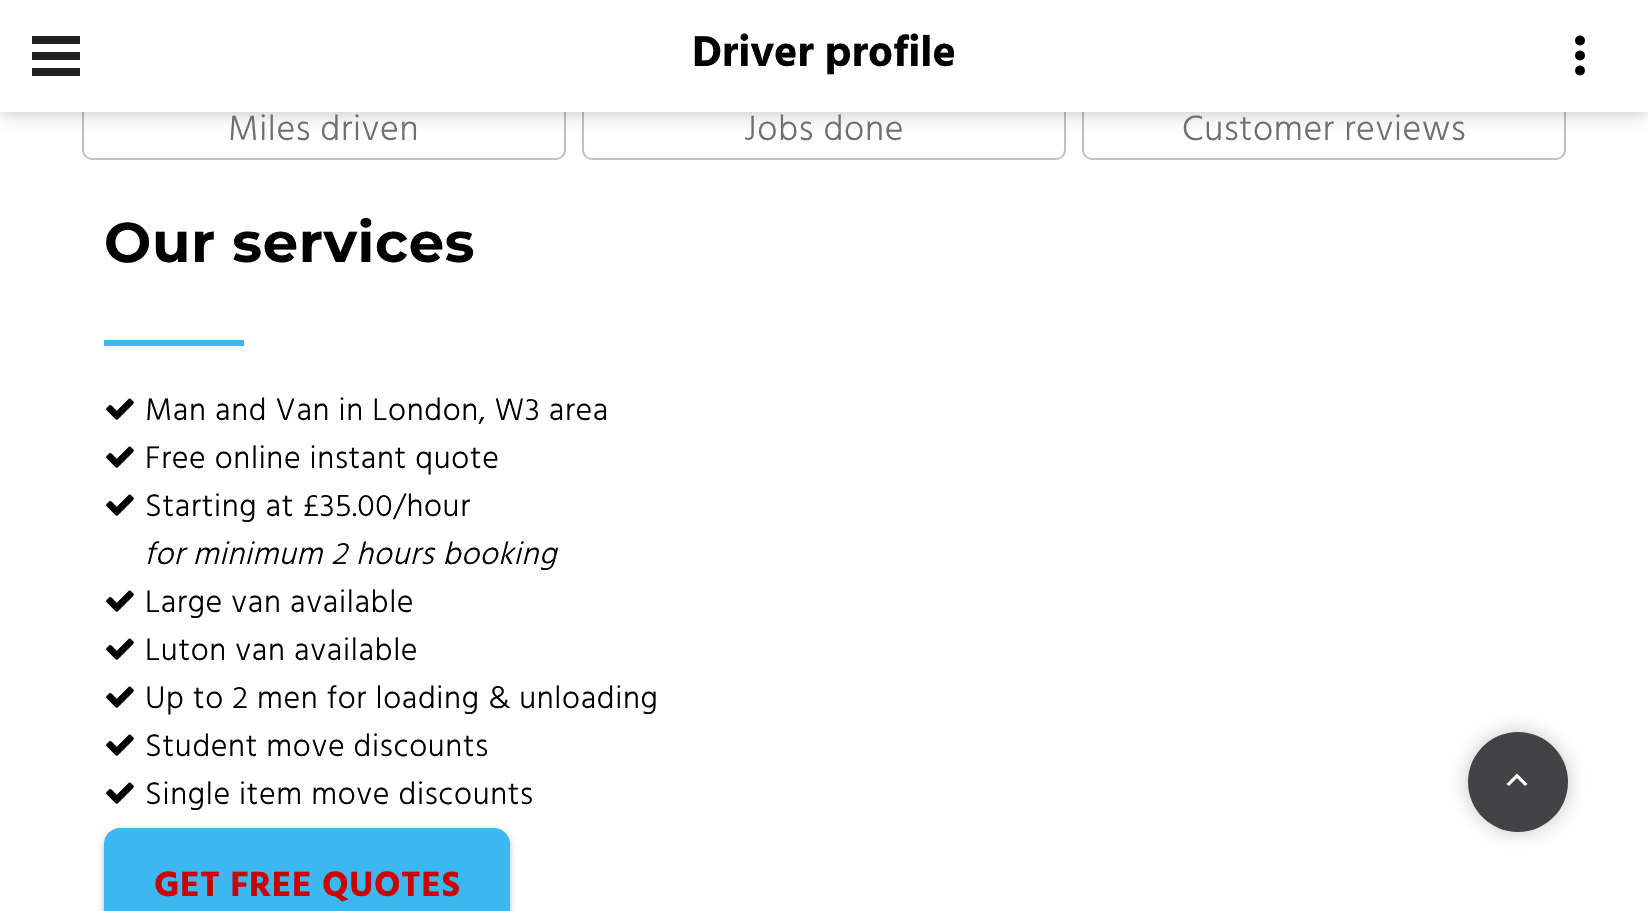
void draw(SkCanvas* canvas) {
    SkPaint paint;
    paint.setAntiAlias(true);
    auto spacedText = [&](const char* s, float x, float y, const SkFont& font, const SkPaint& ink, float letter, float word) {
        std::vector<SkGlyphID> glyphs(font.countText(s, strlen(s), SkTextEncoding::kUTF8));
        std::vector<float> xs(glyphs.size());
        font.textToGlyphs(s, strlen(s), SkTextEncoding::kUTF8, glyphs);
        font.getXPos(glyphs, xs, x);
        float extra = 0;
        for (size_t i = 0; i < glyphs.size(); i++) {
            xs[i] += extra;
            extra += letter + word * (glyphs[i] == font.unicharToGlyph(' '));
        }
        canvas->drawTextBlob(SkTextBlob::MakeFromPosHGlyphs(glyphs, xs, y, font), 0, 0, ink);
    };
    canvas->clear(0xFFFFFFFF);
    paint.setStyle(SkPaint::kStroke_Style);
    paint.setStrokeWidth(2);
    paint.setColor(0xFFBFBFBF);
    canvas->drawRoundRect(SkRect::MakeXYWH(83, 31, 482, 128), 9, 9, paint);
    canvas->drawRoundRect(SkRect::MakeXYWH(583, 31, 482, 128), 9, 9, paint);
    canvas->drawRoundRect(SkRect::MakeXYWH(1083, 31, 482, 128), 9, 9, paint);
    paint.setStyle(SkPaint::kFill_Style);
    paint.setColor(0x59434345);
    paint.setMaskFilter(SkMaskFilter::MakeBlur(kNormal_SkBlurStyle, 10));
    canvas->drawRect(SkRect::MakeXYWH(0, 0, 1648, 112), paint);
    paint.setMaskFilter(nullptr);
    paint.setColor(0xFFFFFFFF);
    canvas->drawRect(SkRect::MakeXYWH(0, 0, 1648, 112), paint);
    paint.setColor(0xFF212121);
    canvas->drawRect(SkRect::MakeXYWH(32, 52, 48, 8), paint);
    canvas->drawRect(SkRect::MakeXYWH(32, 36, 48, 8), paint);
    canvas->drawRect(SkRect::MakeXYWH(32, 68, 48, 8), paint);
    SkFont font1(fontMgr->matchFamilyStyle("Hind", SkFontStyle::Bold()), 44);
    font1.setSubpixel(true);
    paint.setColor(0xFF000000);
    canvas->drawString("Driver profile", 692, 66, font1, paint);
    canvas->drawImageRect(SkImages::DeferredFromEncodedData(SkData::MakeFromFileName("img1.png")), SkRect::MakeXYWH(1575, 35, 10, 41), SkSamplingOptions());
    SkFont font2(fontMgr->matchFamilyStyle("Hind", SkFontStyle(300, SkFontStyle::kNormal_Width, SkFontStyle::kUpright_Slant)), 36);
    font2.setSubpixel(true);
    paint.setColor(0xFF6F6F6F);
    spacedText("Miles driven", 228, 140, font2, paint, 0.65f, 0);
    spacedText("Jobs done", 744, 140, font2, paint, 0.65f, 0);
    spacedText("Customer reviews", 1182, 140, font2, paint, 0.65f, 0);
    SkFont font3(fontMgr->matchFamilyStyle("Montserrat", SkFontStyle::Bold()), 56);
    font3.setSubpixel(true);
    paint.setColor(0xFF000000);
    spacedText("Our services", 104, 262, font3, paint, 0.65f, 0);
    paint.setColor(0xFF3DB7EF);
    canvas->drawRect(SkRect::MakeXYWH(104, 340, 140, 6), paint);
    canvas->drawImageRect(SkImages::DeferredFromEncodedData(SkData::MakeFromFileName("img2.png")), SkRect::MakeXYWH(106, 398, 28, 22), SkSamplingOptions());
    SkFont font4(fontMgr->matchFamilyStyle("Hind", SkFontStyle(300, SkFontStyle::kNormal_Width, SkFontStyle::kUpright_Slant)), 32);
    font4.setSubpixel(true);
    paint.setColor(0xFF000000);
    spacedText("Man and Van in London, W3 area", 145, 420, font4, paint, 0.65f, 0);
    canvas->drawImageRect(SkImages::DeferredFromEncodedData(SkData::MakeFromFileName("img2.png")), SkRect::MakeXYWH(106, 446, 28, 22), SkSamplingOptions());
    spacedText("Free online instant quote", 145, 468, font4, paint, 0.65f, 0);
    canvas->drawImageRect(SkImages::DeferredFromEncodedData(SkData::MakeFromFileName("img2.png")), SkRect::MakeXYWH(106, 494, 28, 22), SkSamplingOptions());
    spacedText("Starting at £35.00/hour", 145, 516, font4, paint, 0.65f, 0);
    SkFont font5(fontMgr->matchFamilyStyle("Hind", SkFontStyle(300, SkFontStyle::kNormal_Width, SkFontStyle::kItalic_Slant)), 32);
    font5.setSubpixel(true);
    spacedText("for minimum 2 hours booking", 144, 564, font5, paint, 0.65f, 0);
    canvas->drawImageRect(SkImages::DeferredFromEncodedData(SkData::MakeFromFileName("img2.png")), SkRect::MakeXYWH(106, 590, 28, 22), SkSamplingOptions());
    spacedText("Large van available", 145, 612, font4, paint, 0.65f, 0);
    canvas->drawImageRect(SkImages::DeferredFromEncodedData(SkData::MakeFromFileName("img2.png")), SkRect::MakeXYWH(106, 638, 28, 22), SkSamplingOptions());
    spacedText("Luton van available", 145, 660, font4, paint, 0.65f, 0);
    canvas->drawImageRect(SkImages::DeferredFromEncodedData(SkData::MakeFromFileName("img2.png")), SkRect::MakeXYWH(106, 686, 28, 22), SkSamplingOptions());
    spacedText("Up to 2 men for loading & unloading", 145, 708, font4, paint, 0.65f, 0);
    canvas->drawImageRect(SkImages::DeferredFromEncodedData(SkData::MakeFromFileName("img2.png")), SkRect::MakeXYWH(106, 734, 28, 22), SkSamplingOptions());
    spacedText("Student move discounts", 145, 756, font4, paint, 0.65f, 0);
    canvas->drawImageRect(SkImages::DeferredFromEncodedData(SkData::MakeFromFileName("img2.png")), SkRect::MakeXYWH(106, 782, 28, 22), SkSamplingOptions());
    spacedText("Single item move discounts", 145, 804, font4, paint, 0.65f, 0);
    paint.setColor(0x1F000000);
    paint.setMaskFilter(SkMaskFilter::MakeBlur(kNormal_SkBlurStyle, 5));
    canvas->drawRoundRect(SkRect::MakeXYWH(104, 830, 406, 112), 16, 16, paint);
    paint.setMaskFilter(nullptr);
    paint.setColor(0x24000000);
    paint.setMaskFilter(SkMaskFilter::MakeBlur(kNormal_SkBlurStyle, 2));
    canvas->drawRoundRect(SkRect::MakeXYWH(104, 832, 406, 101), 16, 16, paint);
    paint.setMaskFilter(nullptr);
    paint.setColor(0xFF3DB7EF);
    canvas->drawRoundRect(SkRect::MakeXYWH(104, 828, 406, 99), 16, 16, paint);
    SkFont font6(fontMgr->matchFamilyStyle("Hind", SkFontStyle::Bold()), 36);
    font6.setSubpixel(true);
    paint.setColor(0xFFCC0000);
    spacedText("GET FREE QUOTES", 154, 896, font6, paint, 0.65f, 0);
    paint.setColor(0x38000000);
    paint.setMaskFilter(SkMaskFilter::MakeBlur(kNormal_SkBlurStyle, 10));
    canvas->drawRoundRect(SkRect::MakeXYWH(1468, 732, 100, 100), 50, 50, paint);
    paint.setMaskFilter(nullptr);
    paint.setColor(0xFF434345);
    canvas->drawCircle(1518, 782, 50, paint);
    paint.setColor(0xFFFFFFFF);
    canvas->drawPath(SkPathBuilder().moveTo(1509, 786).lineTo(1517, 778).lineTo(1525, 786).lineTo(1527.5f, 784).lineTo(1517, 773.5f).lineTo(1506.5f, 784).close().detach(), paint);
}
